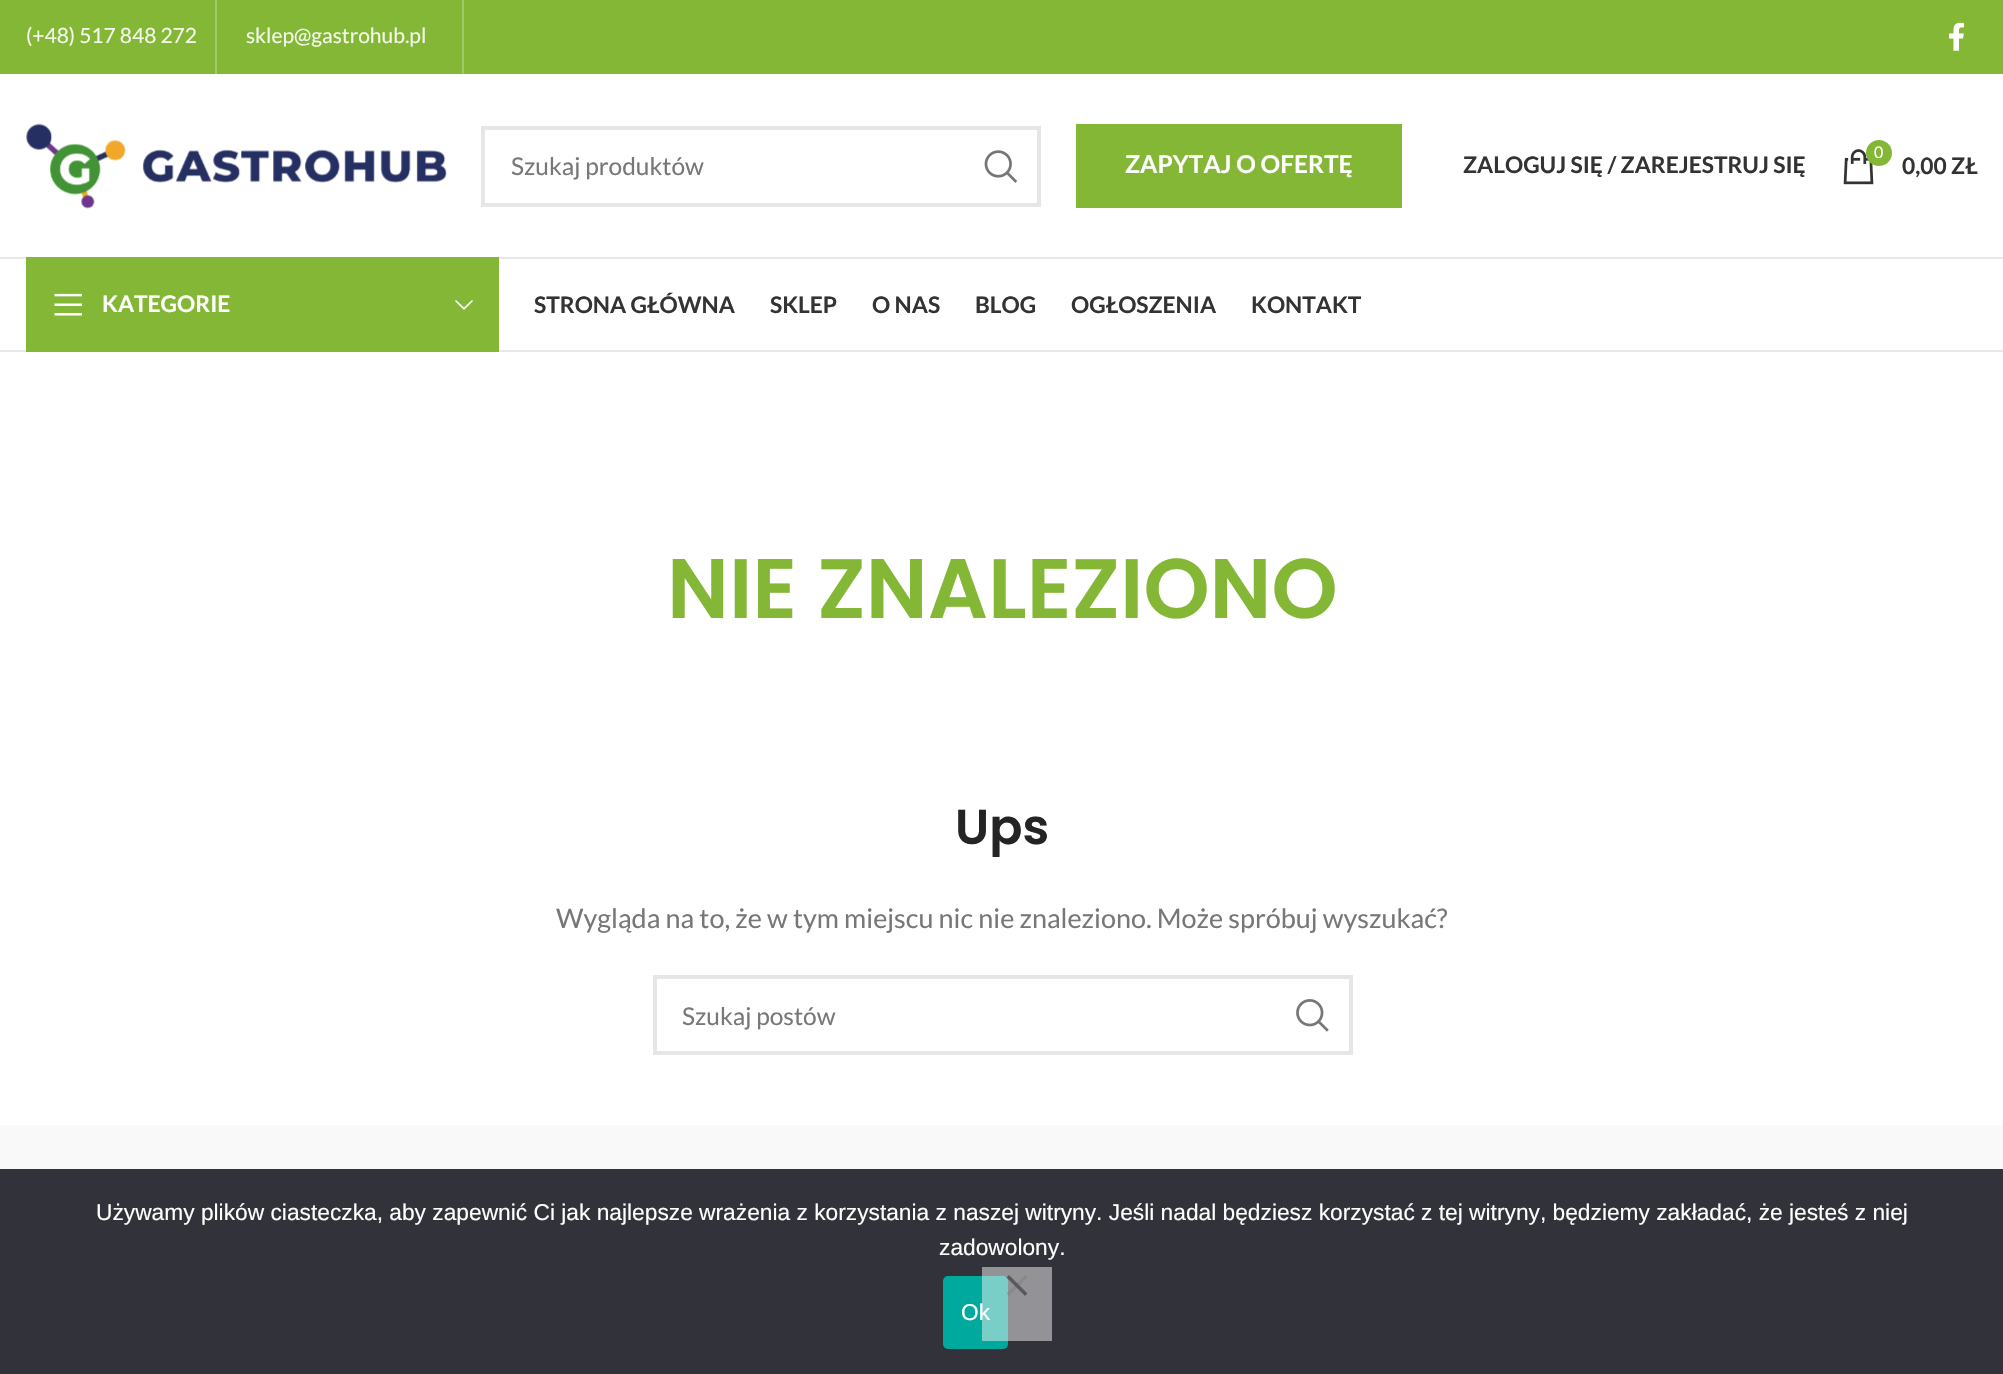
void draw(SkCanvas* canvas) {
    SkPaint paint;
    paint.setAntiAlias(true);
    canvas->clear(0xFFFFFFFF);
    paint.setColor(0xFF83B735);
    canvas->drawRect(SkRect::MakeXYWH(0, 0, 2003, 74), paint);
    SkFont font1(fontMgr->matchFamilyStyle("Lato", SkFontStyle::Normal()), 21);
    font1.setSubpixel(true);
    paint.setColor(0xFFF3F8EB);
    canvas->drawString("(+48) 517 848 272", 26, 43, font1, paint);
    paint.setColor(0xFFA2C968);
    canvas->drawRect(SkRect::MakeXYWH(215, 0, 2, 74), paint);
    paint.setColor(0xFFF3F8EB);
    canvas->drawString("sklep@gastrohub.pl", 246, 43, font1, paint);
    paint.setColor(0xFFA2C968);
    canvas->drawRect(SkRect::MakeXYWH(462, 0, 2, 74), paint);
    canvas->drawImageRect(SkImages::DeferredFromEncodedData(SkData::MakeFromFileName("img1.png")), SkRect::MakeXYWH(1949, 22, 15, 29), SkSamplingOptions());
    paint.setColor(0xFFE8E8E8);
    canvas->drawRect(SkRect::MakeXYWH(0, 257, 2003, 2), paint);
    canvas->drawImageRect(SkImages::DeferredFromEncodedData(SkData::MakeFromFileName("img2.png")), SkRect::MakeXYWH(26, 123, 421, 86), SkSamplingOptions());
    paint.setStyle(SkPaint::kStroke_Style);
    paint.setStrokeWidth(4);
    paint.setColor(0xFFE6E6E6);
    canvas->drawRect(SkRect::MakeXYWH(483, 128, 556, 77), paint);
    SkFont font2(fontMgr->matchFamilyStyle("Lato", SkFontStyle::Normal()), 24.5f);
    font2.setSubpixel(true);
    paint.setStyle(SkPaint::kFill_Style);
    paint.setColor(0xFF777777);
    canvas->drawString("Szukaj produktów", 511, 175, font2, paint);
    canvas->drawImageRect(SkImages::DeferredFromEncodedData(SkData::MakeFromFileName("img3.png")), SkRect::MakeXYWH(984, 150, 34, 33), SkSamplingOptions());
    paint.setColor(0xFF83B735);
    canvas->drawRect(SkRect::MakeXYWH(1076, 124, 326, 84), paint);
    SkFont font3(fontMgr->matchFamilyStyle("Lato", SkFontStyle::Bold()), 24.5f);
    font3.setSubpixel(true);
    paint.setColor(0xFFFFFFFF);
    canvas->drawString("ZAPYTAJ O OFERTĘ", 1125, 173, font3, paint);
    SkFont font4(fontMgr->matchFamilyStyle("Lato", SkFontStyle::Bold()), 22.75f);
    font4.setSubpixel(true);
    paint.setColor(0xFF333333);
    canvas->drawString("ZALOGUJ SIĘ / ZAREJESTRUJ SIĘ", 1463, 173, font4, paint);
    canvas->drawImageRect(SkImages::DeferredFromEncodedData(SkData::MakeFromFileName("img4.png")), SkRect::MakeXYWH(1843, 149, 31, 36), SkSamplingOptions());
    paint.setColor(0xFF83B735);
    canvas->drawCircle(1879, 153, 13, paint);
    SkFont font5(fontMgr->matchFamilyStyle("Lato", SkFontStyle::Normal()), 16);
    font5.setSubpixel(true);
    paint.setColor(0xFFFFFFFF);
    canvas->drawString("0", 1874, 158, font5, paint);
    paint.setColor(0xFF333333);
    canvas->drawString("0,00 ZŁ", 1902, 174, font4, paint);
    paint.setColor(0xFFE8E8E8);
    canvas->drawRect(SkRect::MakeXYWH(0, 350, 2003, 2), paint);
    paint.setColor(0xFF83B735);
    canvas->drawRect(SkRect::MakeXYWH(26, 257, 473, 95), paint);
    canvas->drawImageRect(SkImages::DeferredFromEncodedData(SkData::MakeFromFileName("img5.png")), SkRect::MakeXYWH(54, 293, 29, 23), SkSamplingOptions());
    paint.setColor(0xFFFFFFFF);
    canvas->drawString("KATEGORIE", 102, 312, font4, paint);
    canvas->drawPath(SkPathBuilder().moveTo(472, 300).lineTo(464, 307.5f).lineTo(456, 300).lineTo(455, 301).lineTo(464, 310).lineTo(473, 301).close().detach(), paint);
    paint.setColor(0xFF333333);
    canvas->drawString("STRONA GŁÓWNA", 534, 313, font4, paint);
    canvas->drawString("SKLEP", 770, 313, font4, paint);
    canvas->drawString("O NAS", 872, 313, font4, paint);
    canvas->drawString("BLOG", 975, 313, font4, paint);
    canvas->drawString("OGŁOSZENIA", 1071, 313, font4, paint);
    canvas->drawString("KONTAKT", 1251, 313, font4, paint);
    SkFont font6(fontMgr->matchFamilyStyle("Poppins", SkFontStyle(600, SkFontStyle::kNormal_Width, SkFontStyle::kUpright_Slant)), 84.25f);
    font6.setSubpixel(true);
    paint.setColor(0xFF83B735);
    canvas->drawString("NIE ZNALEZIONO", 667, 618, font6, paint);
    SkFont font7(fontMgr->matchFamilyStyle("Poppins", SkFontStyle(600, SkFontStyle::kNormal_Width, SkFontStyle::kUpright_Slant)), 49);
    font7.setSubpixel(true);
    paint.setColor(0xFF242424);
    canvas->drawString("Ups", 955, 844, font7, paint);
    SkFont font8(fontMgr->matchFamilyStyle("Lato", SkFontStyle::Normal()), 26.95f);
    font8.setSubpixel(true);
    paint.setColor(0xFF777777);
    canvas->drawString("Wygląda na to, że w tym miejscu nic nie znaleziono. Może spróbuj wyszukać?", 556, 928, font8, paint);
    paint.setStyle(SkPaint::kStroke_Style);
    paint.setColor(0xFFE6E6E6);
    canvas->drawRect(SkRect::MakeXYWH(655, 977, 696, 76), paint);
    paint.setStyle(SkPaint::kFill_Style);
    paint.setColor(0xFF777777);
    canvas->drawString("Szukaj postów", 682, 1025, font2, paint);
    canvas->drawImageRect(SkImages::DeferredFromEncodedData(SkData::MakeFromFileName("img6.png")), SkRect::MakeXYWH(1296, 999, 33, 33), SkSamplingOptions());
    paint.setColor(0xFFF9F9F9);
    canvas->drawRect(SkRect::MakeXYWH(0, 1125, 2003, 44), paint);
    paint.setColor(0xFF32323A);
    canvas->drawRect(SkRect::MakeXYWH(0, 1169, 2003, 205), paint);
    SkFont font9(fontMgr->matchFamilyStyle("Liberation Sans", SkFontStyle::Normal()), 22.75f);
    font9.setSubpixel(true);
    paint.setColor(0xFFFFFFFF);
    canvas->drawString("Używamy plików ciasteczka, aby zapewnić Ci jak najlepsze wrażenia z korzystania z naszej witryny. Jeśli nadal będziesz korzystać z tej witryny, będziemy zakładać, że jesteś z niej", 96, 1220, font9, paint);
    canvas->drawString("zadowolony.", 939, 1255, font9, paint);
    paint.setColor(0xFF00A99D);
    canvas->drawRoundRect(SkRect::MakeXYWH(943, 1276, 65, 73), 5, 5, paint);
    paint.setColor(0xFFFFFFFF);
    canvas->drawString("Ok", 961, 1320, font9, paint);
    paint.setColor(0x80F3F3F3);
    canvas->drawRect(SkRect::MakeXYWH(982, 1267, 70, 74), paint);
    paint.setColor(0x80808080);
    canvas->drawPath(SkPathBuilder().moveTo(1025, 1275).lineTo(1027.5f, 1277.5f).lineTo(1009, 1296).lineTo(1006.5f, 1293.5f).close().detach(), paint);
    paint.setColor(0xFF59595D);
    canvas->drawPath(SkPathBuilder().moveTo(1006.5f, 1277.5f).lineTo(1009, 1275).lineTo(1027.5f, 1293.5f).lineTo(1025, 1296).close().detach(), paint);
}
